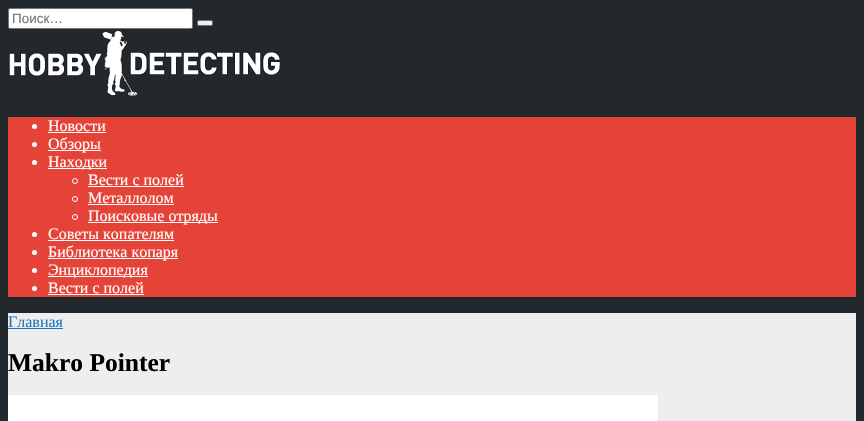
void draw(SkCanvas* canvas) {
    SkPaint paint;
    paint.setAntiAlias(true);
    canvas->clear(0xFF23282D);
    paint.setColor(0xFFFFFFFF);
    canvas->drawRoundRect(SkRect::MakeXYWH(8.5f, 8.5f, 184, 20), 1.5f, 1.5f, paint);
    paint.setStyle(SkPaint::kStroke_Style);
    paint.setStrokeWidth(1);
    paint.setColor(0xFF767676);
    canvas->drawRoundRect(SkRect::MakeXYWH(8.5f, 8.5f, 184, 20), 1.5f, 1.5f, paint);
    SkFont font1(fontMgr->matchFamilyStyle("Liberation Sans", SkFontStyle::Normal()), 13.5f);
    font1.setSubpixel(true);
    paint.setStyle(SkPaint::kFill_Style);
    paint.setColor(0xFF757575);
    canvas->drawString("Поиск…", 12, 23, font1, paint);
    paint.setColor(0xFFEFEFEF);
    canvas->drawRoundRect(SkRect::MakeXYWH(197.5f, 20.5f, 15, 5), 1.5f, 1.5f, paint);
    paint.setStyle(SkPaint::kStroke_Style);
    paint.setColor(0xFF767676);
    canvas->drawRoundRect(SkRect::MakeXYWH(197.5f, 20.5f, 15, 5), 1.5f, 1.5f, paint);
    canvas->drawImageRect(SkImages::DeferredFromEncodedData(SkData::MakeFromFileName("img1.png")), SkRect::MakeXYWH(9, 30, 272, 67), SkSamplingOptions());
    paint.setStyle(SkPaint::kFill_Style);
    paint.setColor(0xFFE64338);
    canvas->drawRect(SkRect::MakeXYWH(8, 117, 848, 180), paint);
    paint.setColor(0xFFFFFFFF);
    canvas->drawCircle(34.5f, 126.5f, 2.5f, paint);
    SkFont font2(fontMgr->matchFamilyStyle("Liberation Serif", SkFontStyle::Normal()), 16);
    font2.setSubpixel(true);
    canvas->drawString("Новости", 48, 131, font2, paint);
    canvas->drawRect(SkRect::MakeXYWH(48, 132, 58, 1), paint);
    canvas->drawCircle(34.5f, 144.5f, 2.5f, paint);
    canvas->drawRect(SkRect::MakeXYWH(48, 150, 53, 1), paint);
    canvas->drawString("Обзоры", 48, 149, font2, paint);
    canvas->drawCircle(34.5f, 162.5f, 2.5f, paint);
    canvas->drawRect(SkRect::MakeXYWH(48, 168, 59, 1), paint);
    canvas->drawString("Находки", 48, 167, font2, paint);
    paint.setStyle(SkPaint::kStroke_Style);
    canvas->drawCircle(75, 181, 2.5f, paint);
    paint.setStyle(SkPaint::kFill_Style);
    canvas->drawString("Вести с полей", 88, 185, font2, paint);
    canvas->drawRect(SkRect::MakeXYWH(88, 186, 96, 1), paint);
    paint.setStyle(SkPaint::kStroke_Style);
    canvas->drawCircle(75, 199, 2.5f, paint);
    paint.setStyle(SkPaint::kFill_Style);
    canvas->drawString("Металлолом", 88, 203, font2, paint);
    canvas->drawRect(SkRect::MakeXYWH(88, 204, 86, 1), paint);
    paint.setStyle(SkPaint::kStroke_Style);
    canvas->drawCircle(75, 217, 2.5f, paint);
    paint.setStyle(SkPaint::kFill_Style);
    canvas->drawRect(SkRect::MakeXYWH(88, 222, 130, 1), paint);
    canvas->drawString("Поисковые отряды", 88, 221, font2, paint);
    canvas->drawCircle(34.5f, 234.5f, 2.5f, paint);
    canvas->drawString("Советы копателям", 48, 239, font2, paint);
    canvas->drawRect(SkRect::MakeXYWH(48, 240, 126, 1), paint);
    canvas->drawCircle(34.5f, 252.5f, 2.5f, paint);
    canvas->drawRect(SkRect::MakeXYWH(48, 258, 130, 1), paint);
    canvas->drawString("Библиотека копаря", 48, 257, font2, paint);
    canvas->drawCircle(34.5f, 270.5f, 2.5f, paint);
    canvas->drawRect(SkRect::MakeXYWH(48, 276, 100, 1), paint);
    canvas->drawString("Энциклопедия", 48, 275, font2, paint);
    canvas->drawCircle(34.5f, 288.5f, 2.5f, paint);
    canvas->drawString("Вести с полей", 48, 293, font2, paint);
    canvas->drawRect(SkRect::MakeXYWH(48, 294, 96, 1), paint);
    paint.setColor(0xFFEEEEEE);
    canvas->drawRect(SkRect::MakeXYWH(8, 313, 848, 108), paint);
    paint.setColor(0xFF1E73BE);
    canvas->drawString("Главная", 8, 327, font2, paint);
    canvas->drawRect(SkRect::MakeXYWH(8, 328, 55, 1), paint);
    SkFont font3(fontMgr->matchFamilyStyle("Liberation Serif", SkFontStyle::Bold()), 25.5f);
    font3.setSubpixel(true);
    paint.setColor(0xFF000000);
    canvas->drawString("Makro Pointer", 8, 371, font3, paint);
    paint.setColor(0xFFFFFFFF);
    canvas->drawRect(SkRect::MakeXYWH(8, 395, 650, 26), paint);
}
